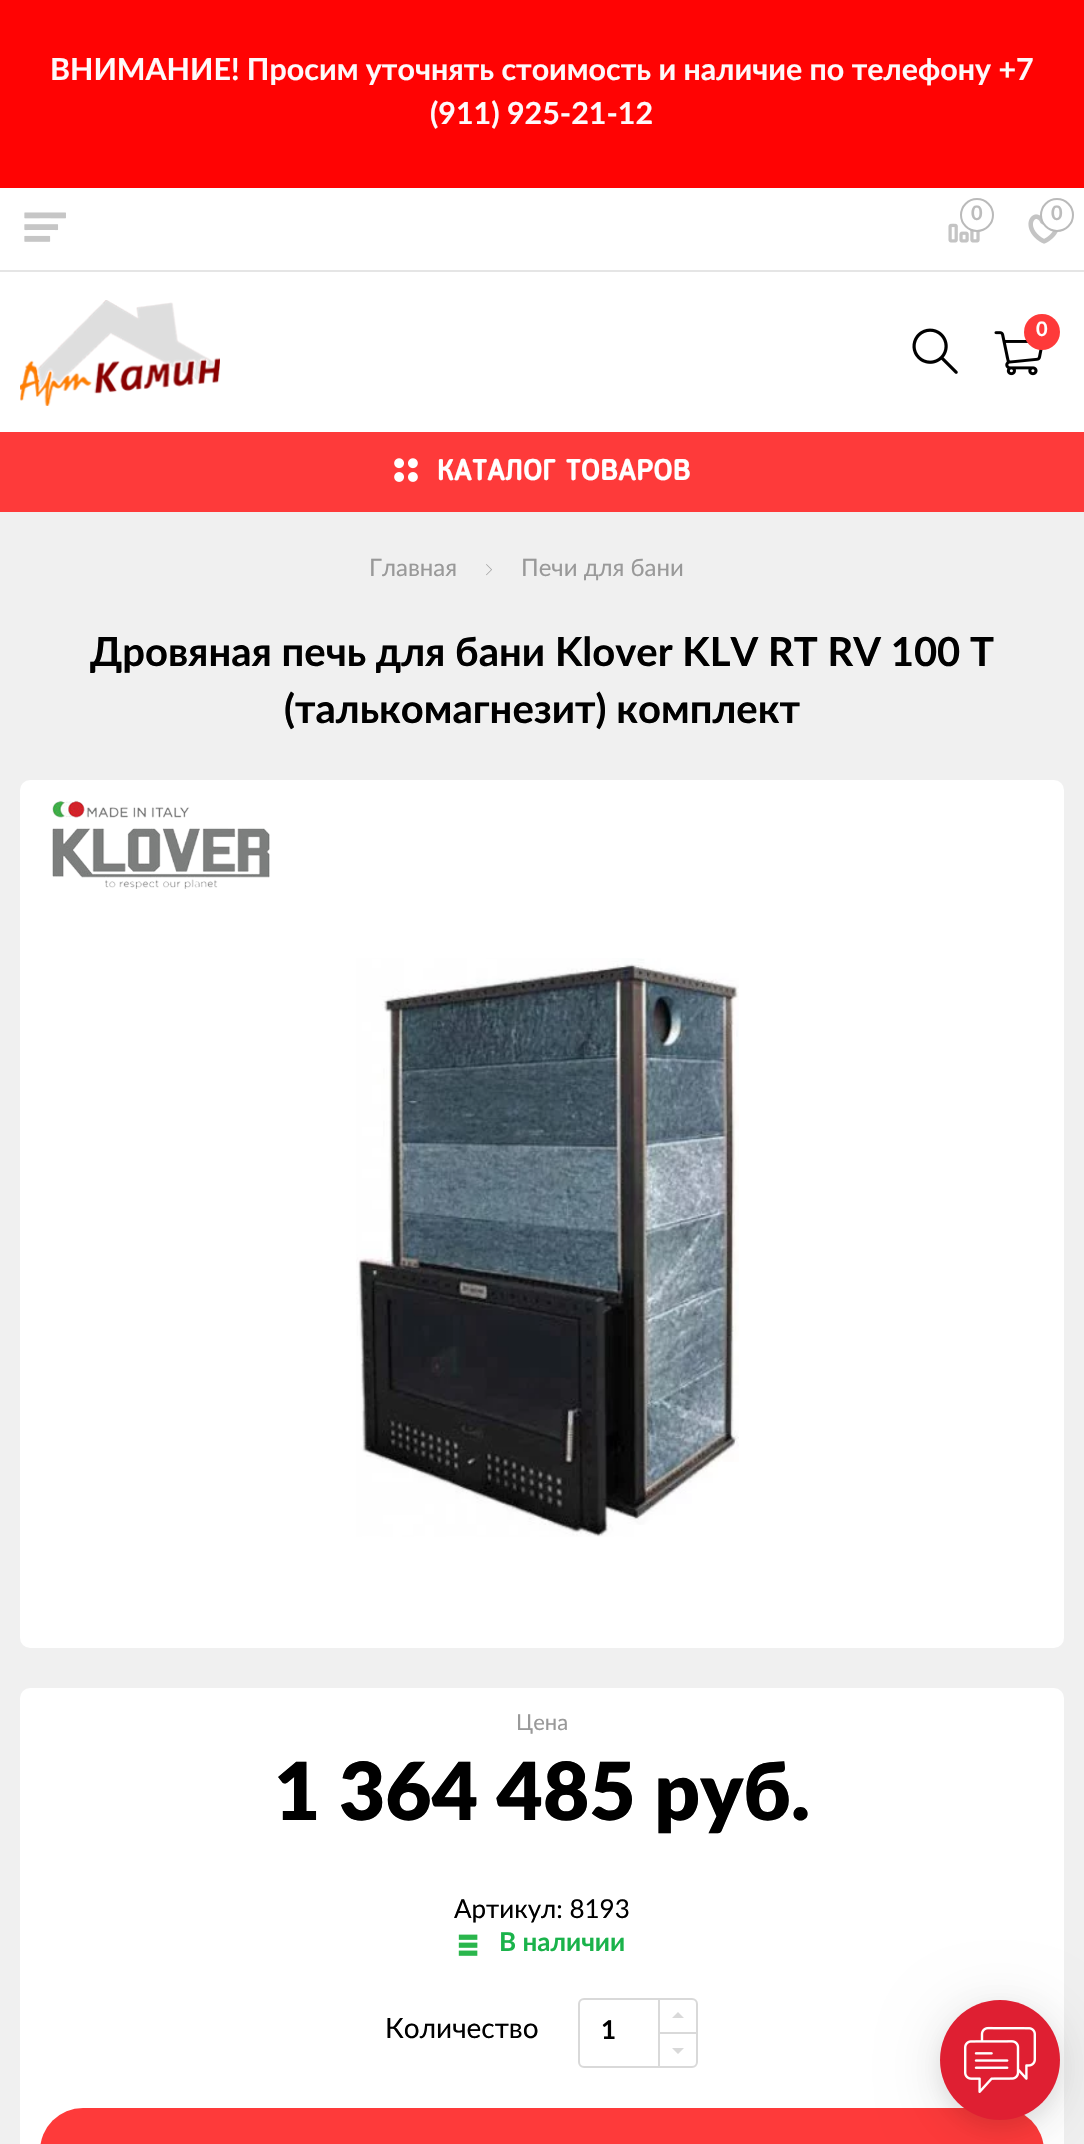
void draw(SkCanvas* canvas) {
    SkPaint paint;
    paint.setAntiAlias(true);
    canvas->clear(0xFFF0F0F0);
    paint.setColor(0xFFFF0303);
    canvas->drawRect(SkRect::MakeXYWH(0, 0, 1084, 188), paint);
    SkFont font1(fontMgr->matchFamilyStyle("Lato", SkFontStyle::Bold()), 30.4f);
    font1.setSubpixel(true);
    paint.setColor(0xFFFEF9FA);
    canvas->drawString("ВНИМАНИЕ! Просим уточнять стоимость и наличие по телефону +7", 50, 80, font1, paint);
    canvas->drawString("(911) 925-21-12", 430, 124, font1, paint);
    paint.setColor(0xFFFFFFFF);
    canvas->drawRect(SkRect::MakeXYWH(0, 188, 1084, 82), paint);
    paint.setColor(0xFFE5E5E5);
    canvas->drawRect(SkRect::MakeXYWH(0, 270, 1084, 2), paint);
    canvas->drawImageRect(SkImages::DeferredFromEncodedData(SkData::MakeFromFileName("img1.png")), SkRect::MakeXYWH(24, 212, 42, 30), SkSamplingOptions());
    canvas->drawImageRect(SkImages::DeferredFromEncodedData(SkData::MakeFromFileName("img2.png")), SkRect::MakeXYWH(948, 223, 32, 20), SkSamplingOptions());
    paint.setColor(0xFFFFFFFF);
    canvas->drawCircle(977, 215, 16, paint);
    paint.setStyle(SkPaint::kStroke_Style);
    paint.setStrokeWidth(2);
    paint.setColor(0xFFBABABA);
    canvas->drawCircle(977, 215, 16, paint);
    SkFont font2(fontMgr->matchFamilyStyle("Lato", SkFontStyle::Bold()), 20);
    font2.setSubpixel(true);
    paint.setStyle(SkPaint::kFill_Style);
    paint.setColor(0xFFBCBCBC);
    canvas->drawString("0", 971, 220, font2, paint);
    canvas->drawImageRect(SkImages::DeferredFromEncodedData(SkData::MakeFromFileName("img3.png")), SkRect::MakeXYWH(1028, 214, 30, 30), SkSamplingOptions());
    paint.setColor(0xFFFFFFFF);
    canvas->drawCircle(1057, 215, 16, paint);
    paint.setStyle(SkPaint::kStroke_Style);
    paint.setColor(0xFFBABABA);
    canvas->drawCircle(1057, 215, 16, paint);
    paint.setStyle(SkPaint::kFill_Style);
    paint.setColor(0xFFBCBCBC);
    canvas->drawString("0", 1051, 220, font2, paint);
    paint.setColor(0xFFFFFFFF);
    canvas->drawRect(SkRect::MakeXYWH(0, 272, 1084, 160), paint);
    canvas->drawImageRect(SkImages::DeferredFromEncodedData(SkData::MakeFromFileName("img4.png")), SkRect::MakeXYWH(20, 300, 200, 106), SkSamplingOptions());
    canvas->drawImageRect(SkImages::DeferredFromEncodedData(SkData::MakeFromFileName("img5.png")), SkRect::MakeXYWH(912, 328, 46, 46), SkSamplingOptions());
    canvas->drawImageRect(SkImages::DeferredFromEncodedData(SkData::MakeFromFileName("img6.png")), SkRect::MakeXYWH(994, 331, 49, 45), SkSamplingOptions());
    paint.setColor(0xFFFE3A3A);
    canvas->drawCircle(1042, 332, 18, paint);
    paint.setColor(0xFFFFFFFF);
    canvas->drawString("0", 1036, 336, font2, paint);
    paint.setColor(0xFFFE3A3A);
    canvas->drawRect(SkRect::MakeXYWH(0, 432, 1084, 80), paint);
    canvas->drawImageRect(SkImages::DeferredFromEncodedData(SkData::MakeFromFileName("img7.png")), SkRect::MakeXYWH(394, 458, 24, 24), SkSamplingOptions());
    SkFont font3(fontMgr->matchFamilyStyle("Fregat", SkFontStyle::Bold()), 30);
    font3.setSubpixel(true);
    paint.setColor(0xFFFFFFFF);
    canvas->drawString("КАТАЛОГ ТОВАРОВ", 437, 480, font3, paint);
    SkFont font4(fontMgr->matchFamilyStyle("Lato", SkFontStyle::Normal()), 24);
    font4.setSubpixel(true);
    paint.setColor(0xFF999999);
    canvas->drawString("Главная", 369, 576, font4, paint);
    canvas->drawImageRect(SkImages::DeferredFromEncodedData(SkData::MakeFromFileName("img8.png")), SkRect::MakeXYWH(486, 564, 6, 12), SkSamplingOptions());
    canvas->drawString("Печи для бани", 521, 576, font4, paint);
    SkFont font5(fontMgr->matchFamilyStyle("Lato", SkFontStyle::Bold()), 40);
    font5.setSubpixel(true);
    paint.setColor(0xFF000000);
    canvas->drawString("Дровяная печь для бани Klover KLV RT RV 100 T", 90, 666, font5, paint);
    canvas->drawString("(талькомагнезит) комплект", 284, 723, font5, paint);
    paint.setColor(0xFFFFFFFF);
    canvas->drawRoundRect(SkRect::MakeXYWH(20, 780, 1044, 868), 10, 10, paint);
    canvas->drawImageRect(SkImages::DeferredFromEncodedData(SkData::MakeFromFileName("img9.png")), SkRect::MakeXYWH(52, 800, 218, 89), SkSamplingOptions());
    canvas->drawImageRect(SkImages::DeferredFromEncodedData(SkData::MakeFromFileName("img10.png")), SkRect::MakeXYWH(356, 958, 383, 579), SkSamplingOptions());
    canvas->drawRoundRect(SkRect::MakeXYWH(20, 1688, 1044, 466), 10, 10, paint);
    SkFont font6(fontMgr->matchFamilyStyle("Lato", SkFontStyle::Normal()), 22);
    font6.setSubpixel(true);
    paint.setColor(0xFF999999);
    canvas->drawString("Цена", 516, 1730, font6, paint);
    SkFont font7(fontMgr->matchFamilyStyle("Lato", SkFontStyle(900, SkFontStyle::kNormal_Width, SkFontStyle::kUpright_Slant)), 80);
    font7.setSubpixel(true);
    paint.setColor(0xFF000000);
    canvas->drawString("1 364 485 руб.", 274, 1820, font7, paint);
    SkFont font8(fontMgr->matchFamilyStyle("Lato", SkFontStyle::Normal()), 26);
    font8.setSubpixel(true);
    canvas->drawString("Артикул: 8193", 454, 1918, font8, paint);
    canvas->drawImageRect(SkImages::DeferredFromEncodedData(SkData::MakeFromFileName("img11.png")), SkRect::MakeXYWH(458, 1934, 20, 22), SkSamplingOptions());
    SkFont font9(fontMgr->matchFamilyStyle("Lato", SkFontStyle::Bold()), 26);
    font9.setSubpixel(true);
    paint.setColor(0xFF1AB34B);
    canvas->drawString("В наличии", 499, 1951, font9, paint);
    SkFont font10(fontMgr->matchFamilyStyle("Lato", SkFontStyle::Normal()), 28);
    font10.setSubpixel(true);
    paint.setColor(0xFF000000);
    canvas->drawString("Количество", 385, 2038, font10, paint);
    paint.setStyle(SkPaint::kStroke_Style);
    paint.setColor(0xFFD9D9D9);
    canvas->drawRoundRect(SkRect::MakeXYWH(579, 1999, 118, 68), 5, 5, paint);
    paint.setStyle(SkPaint::kFill_Style);
    paint.setColor(0xFF000000);
    canvas->drawString("1", 601, 2039, font9, paint);
    paint.setColor(0xFFD9D9D9);
    canvas->drawRect(SkRect::MakeXYWH(658, 1998, 2, 70), paint);
    canvas->drawRect(SkRect::MakeXYWH(660, 2032, 38, 2), paint);
    canvas->drawPath(SkPathBuilder().moveTo(684, 2018).lineTo(672, 2018).lineTo(678, 2012).close().moveTo(672, 2048).lineTo(684, 2048).lineTo(678, 2054).close().detach(), paint);
    paint.setColor(0xFFFE3A3A);
    canvas->drawRoundRect(SkRect::MakeXYWH(40, 2108, 1004, 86), 50, 50, paint);
    paint.setColor(0x1A000000);
    paint.setMaskFilter(SkMaskFilter::MakeBlur(kNormal_SkBlurStyle, 30));
    canvas->drawRoundRect(SkRect::MakeXYWH(940, 2008, 120, 120), 60, 60, paint);
    paint.setMaskFilter(nullptr);
    paint.setColor(0x14000000);
    paint.setMaskFilter(SkMaskFilter::MakeBlur(kNormal_SkBlurStyle, 10));
    canvas->drawRoundRect(SkRect::MakeXYWH(940, 2008, 120, 120), 60, 60, paint);
    paint.setMaskFilter(nullptr);
    paint.setColor(0xFFDF1F32);
    canvas->drawCircle(1000, 2060, 60, paint);
    canvas->drawImageRect(SkImages::DeferredFromEncodedData(SkData::MakeFromFileName("img12.png")), SkRect::MakeXYWH(964, 2026, 72, 67), SkSamplingOptions());
}
